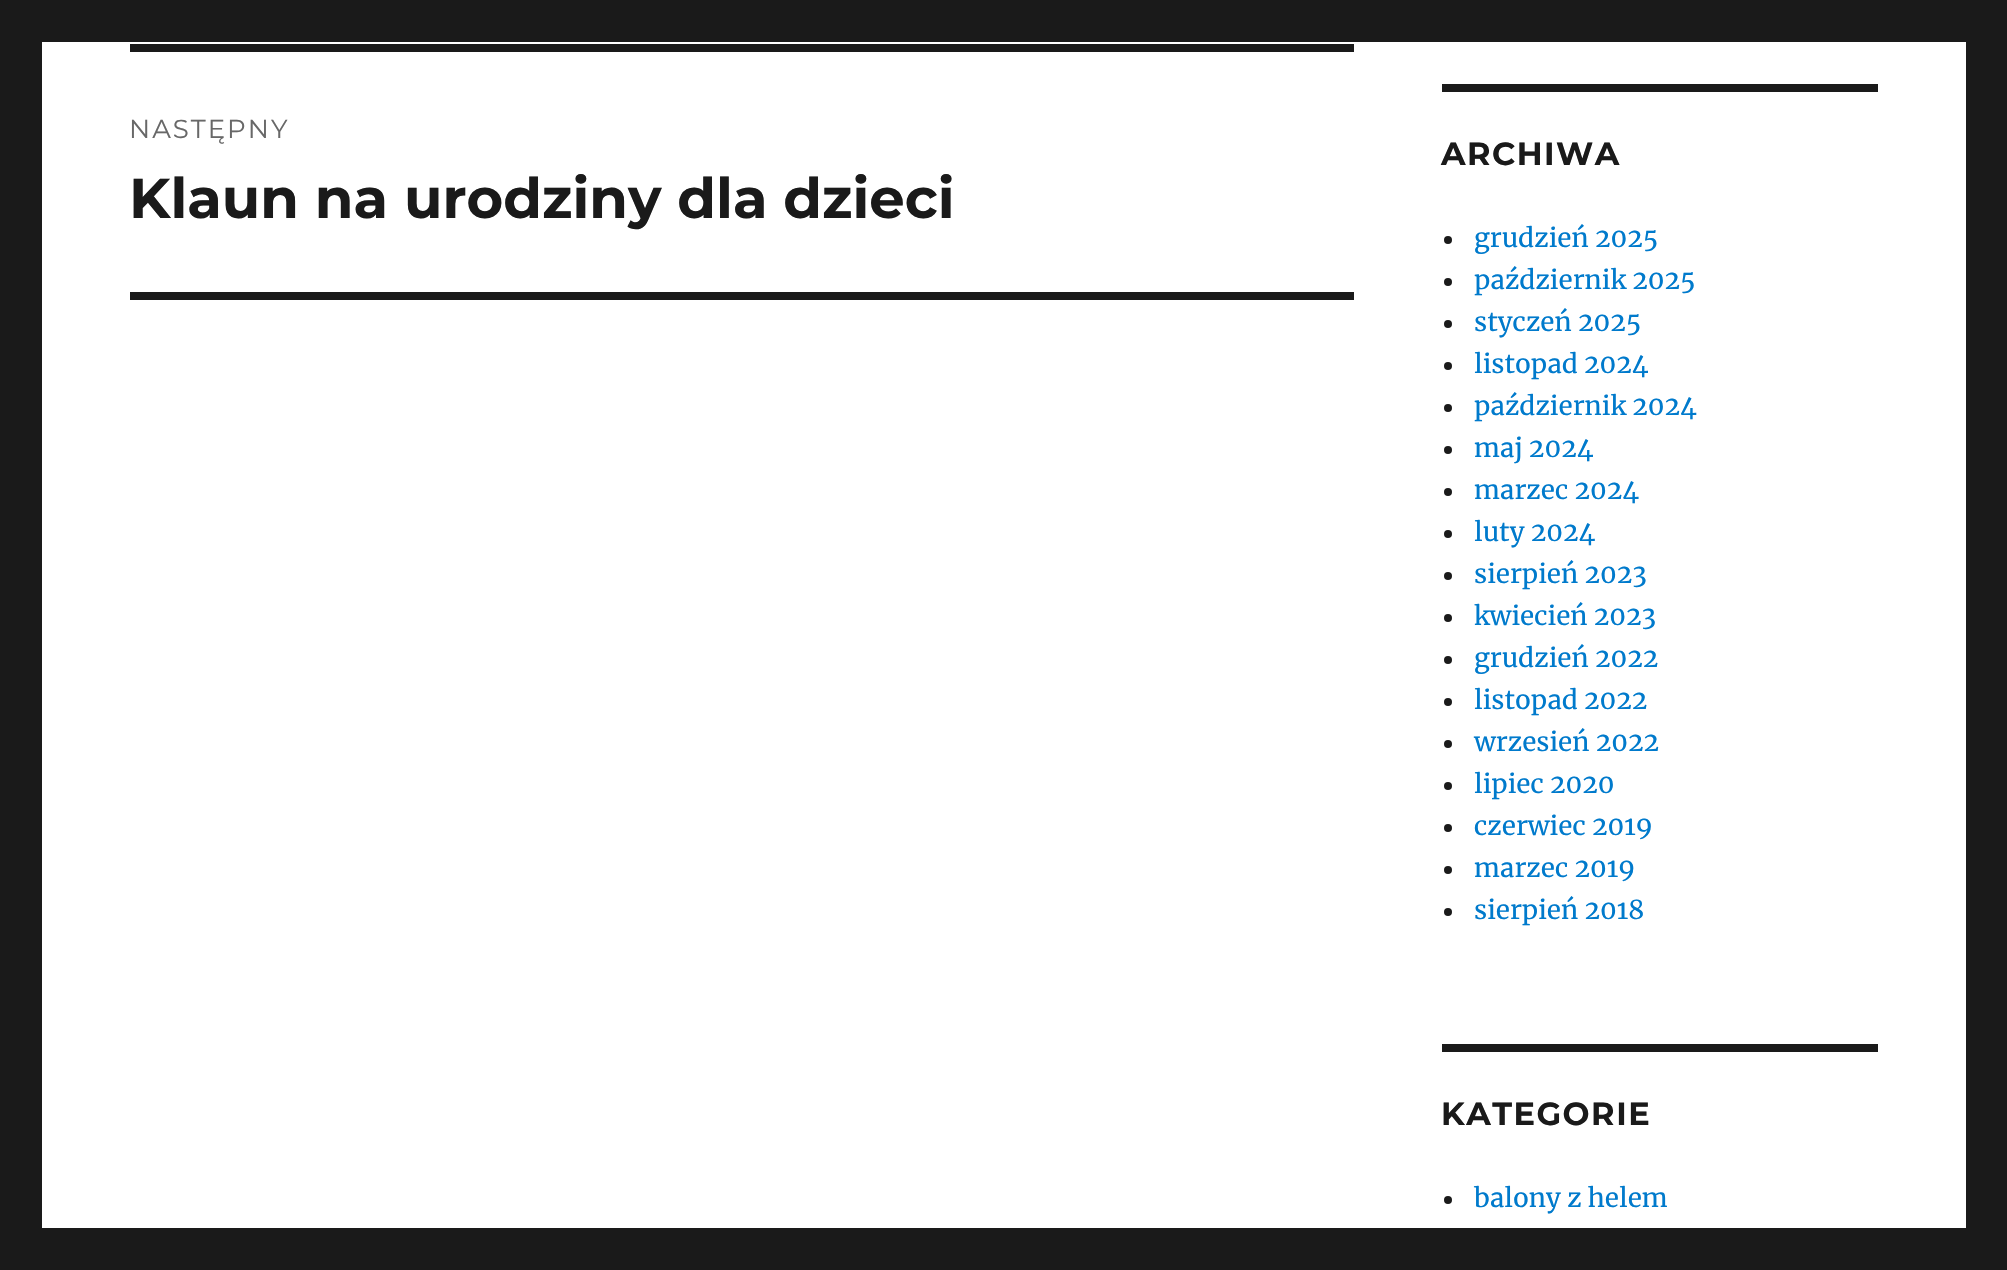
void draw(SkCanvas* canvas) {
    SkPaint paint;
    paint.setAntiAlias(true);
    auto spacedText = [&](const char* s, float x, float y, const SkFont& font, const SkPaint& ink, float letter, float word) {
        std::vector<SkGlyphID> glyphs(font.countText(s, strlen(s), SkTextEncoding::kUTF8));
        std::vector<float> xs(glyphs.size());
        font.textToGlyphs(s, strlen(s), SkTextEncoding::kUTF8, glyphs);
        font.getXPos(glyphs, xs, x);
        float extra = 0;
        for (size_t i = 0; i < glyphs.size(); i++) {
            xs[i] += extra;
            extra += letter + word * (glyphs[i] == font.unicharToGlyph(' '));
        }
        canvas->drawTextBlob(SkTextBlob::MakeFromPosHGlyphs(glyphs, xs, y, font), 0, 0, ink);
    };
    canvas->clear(0xFF1A1A1A);
    paint.setColor(0xFFFFFFFF);
    canvas->drawRect(SkRect::MakeXYWH(42, 42, 1924, 1186), paint);
    paint.setColor(0xFF1A1A1A);
    canvas->drawRect(SkRect::MakeXYWH(130, 44, 1224, 8), paint);
    canvas->drawRect(SkRect::MakeXYWH(130, 292, 1224, 8), paint);
    SkFont font1(fontMgr->matchFamilyStyle("Montserrat", SkFontStyle::Normal()), 26);
    font1.setSubpixel(true);
    paint.setColor(0xFF686868);
    spacedText("NASTĘPNY", 129, 138, font1, paint, 2, 0);
    SkFont font2(fontMgr->matchFamilyStyle("Montserrat", SkFontStyle::Bold()), 56);
    font2.setSubpixel(true);
    paint.setColor(0xFF1A1A1A);
    canvas->drawString("Klaun na urodziny dla dzieci", 129, 218, font2, paint);
    canvas->drawRect(SkRect::MakeXYWH(1442, 84, 436, 8), paint);
    SkFont font3(fontMgr->matchFamilyStyle("Montserrat", SkFontStyle::Bold()), 32);
    font3.setSubpixel(true);
    spacedText("ARCHIWA", 1441, 165, font3, paint, 1.5f, 0);
    canvas->drawCircle(1448, 240, 4, paint);
    SkFont font4(fontMgr->matchFamilyStyle("Merriweather", SkFontStyle::Normal()), 26);
    font4.setSubpixel(true);
    paint.setColor(0xFF007ACC);
    canvas->drawString("grudzień 2025", 1474, 247, font4, paint);
    paint.setColor(0xFF1A1A1A);
    canvas->drawCircle(1448, 282, 4, paint);
    paint.setColor(0xFF007ACC);
    canvas->drawString("październik 2025", 1474, 289, font4, paint);
    paint.setColor(0xFF1A1A1A);
    canvas->drawCircle(1448, 324, 4, paint);
    paint.setColor(0xFF007ACC);
    canvas->drawString("styczeń 2025", 1474, 331, font4, paint);
    paint.setColor(0xFF1A1A1A);
    canvas->drawCircle(1448, 366, 4, paint);
    paint.setColor(0xFF007ACC);
    canvas->drawString("listopad 2024", 1474, 373, font4, paint);
    paint.setColor(0xFF1A1A1A);
    canvas->drawCircle(1448, 408, 4, paint);
    paint.setColor(0xFF007ACC);
    canvas->drawString("październik 2024", 1474, 415, font4, paint);
    paint.setColor(0xFF1A1A1A);
    canvas->drawCircle(1448, 450, 4, paint);
    paint.setColor(0xFF007ACC);
    canvas->drawString("maj 2024", 1474, 457, font4, paint);
    paint.setColor(0xFF1A1A1A);
    canvas->drawCircle(1448, 492, 4, paint);
    paint.setColor(0xFF007ACC);
    canvas->drawString("marzec 2024", 1474, 499, font4, paint);
    paint.setColor(0xFF1A1A1A);
    canvas->drawCircle(1448, 534, 4, paint);
    paint.setColor(0xFF007ACC);
    canvas->drawString("luty 2024", 1474, 541, font4, paint);
    paint.setColor(0xFF1A1A1A);
    canvas->drawCircle(1448, 576, 4, paint);
    paint.setColor(0xFF007ACC);
    canvas->drawString("sierpień 2023", 1474, 583, font4, paint);
    paint.setColor(0xFF1A1A1A);
    canvas->drawCircle(1448, 618, 4, paint);
    paint.setColor(0xFF007ACC);
    canvas->drawString("kwiecień 2023", 1474, 625, font4, paint);
    paint.setColor(0xFF1A1A1A);
    canvas->drawCircle(1448, 660, 4, paint);
    paint.setColor(0xFF007ACC);
    canvas->drawString("grudzień 2022", 1474, 667, font4, paint);
    paint.setColor(0xFF1A1A1A);
    canvas->drawCircle(1448, 702, 4, paint);
    paint.setColor(0xFF007ACC);
    canvas->drawString("listopad 2022", 1474, 709, font4, paint);
    paint.setColor(0xFF1A1A1A);
    canvas->drawCircle(1448, 744, 4, paint);
    paint.setColor(0xFF007ACC);
    canvas->drawString("wrzesień 2022", 1474, 751, font4, paint);
    paint.setColor(0xFF1A1A1A);
    canvas->drawCircle(1448, 786, 4, paint);
    paint.setColor(0xFF007ACC);
    canvas->drawString("lipiec 2020", 1474, 793, font4, paint);
    paint.setColor(0xFF1A1A1A);
    canvas->drawCircle(1448, 828, 4, paint);
    paint.setColor(0xFF007ACC);
    canvas->drawString("czerwiec 2019", 1474, 835, font4, paint);
    paint.setColor(0xFF1A1A1A);
    canvas->drawCircle(1448, 870, 4, paint);
    paint.setColor(0xFF007ACC);
    canvas->drawString("marzec 2019", 1474, 877, font4, paint);
    paint.setColor(0xFF1A1A1A);
    canvas->drawCircle(1448, 912, 4, paint);
    paint.setColor(0xFF007ACC);
    canvas->drawString("sierpień 2018", 1474, 919, font4, paint);
    paint.setColor(0xFF1A1A1A);
    canvas->drawRect(SkRect::MakeXYWH(1442, 1044, 436, 8), paint);
    spacedText("KATEGORIE", 1441, 1125, font3, paint, 1.5f, 0);
    canvas->drawCircle(1448, 1200, 4, paint);
    paint.setColor(0xFF007ACC);
    canvas->drawString("balony z helem", 1474, 1207, font4, paint);
}
